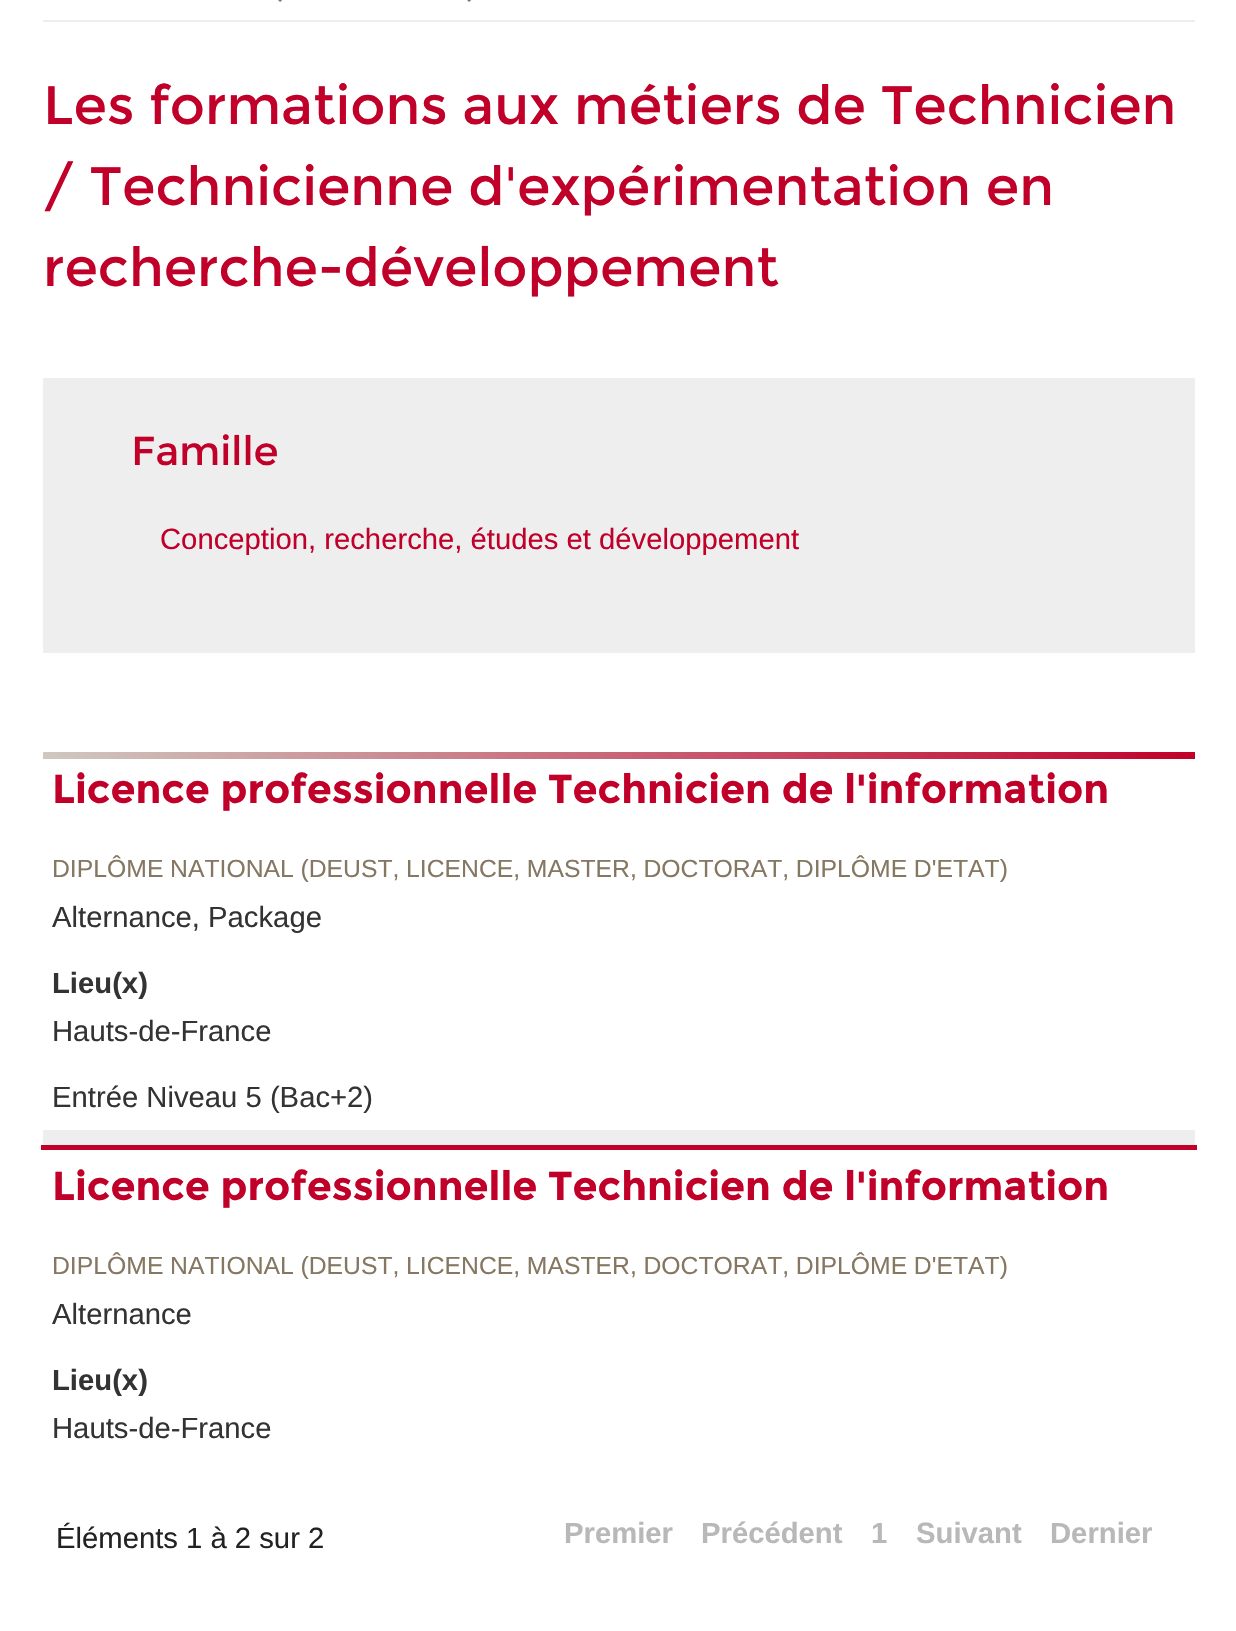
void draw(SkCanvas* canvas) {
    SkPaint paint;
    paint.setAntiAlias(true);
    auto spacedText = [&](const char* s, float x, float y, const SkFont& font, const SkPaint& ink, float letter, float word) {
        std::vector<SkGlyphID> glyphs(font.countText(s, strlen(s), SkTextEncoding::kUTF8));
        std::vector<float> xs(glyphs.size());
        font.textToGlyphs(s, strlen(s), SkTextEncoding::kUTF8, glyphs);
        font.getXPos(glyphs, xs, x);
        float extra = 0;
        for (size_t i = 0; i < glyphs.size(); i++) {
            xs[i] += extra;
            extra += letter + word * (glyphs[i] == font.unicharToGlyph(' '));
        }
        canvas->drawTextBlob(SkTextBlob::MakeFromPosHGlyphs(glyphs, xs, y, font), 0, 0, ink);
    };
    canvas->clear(0xFFFFFFFF);
    paint.setColor(0xFFEEEEEE);
    canvas->drawRect(SkRect::MakeXYWH(43, 20, 1152, 2), paint);
    canvas->drawImageRect(SkImages::DeferredFromEncodedData(SkData::MakeFromFileName("img1.png")), SkRect::MakeXYWH(278, 0, 4, 2), SkSamplingOptions());
    canvas->drawImageRect(SkImages::DeferredFromEncodedData(SkData::MakeFromFileName("img1.png")), SkRect::MakeXYWH(467, 0, 4, 2), SkSamplingOptions());
    SkFont font1(fontMgr->matchFamilyStyle("Montserrat", SkFontStyle::Normal()), 54);
    font1.setSubpixel(true);
    paint.setColor(0xFFC1002A);
    canvas->drawString("Les formations aux métiers de Technicien", 43, 124, font1, paint);
    canvas->drawString("/ Technicienne d'expérimentation en", 43, 205, font1, paint);
    canvas->drawString("recherche-développement", 43, 286, font1, paint);
    paint.setColor(0xFFEEEEEE);
    canvas->drawRect(SkRect::MakeXYWH(43, 378, 1152, 275), paint);
    SkFont font2(fontMgr->matchFamilyStyle("Montserrat", SkFontStyle::Normal()), 40.5f);
    font2.setSubpixel(true);
    paint.setColor(0xFFC1002A);
    canvas->drawString("Famille", 131, 465, font2, paint);
    SkFont font3(fontMgr->matchFamilyStyle("Liberation Sans", SkFontStyle::Normal()), 29.25f);
    font3.setSubpixel(true);
    canvas->drawString("Conception, recherche, études et développement", 160, 549, font3, paint);
    {
        const SkColor colors[] = {0xFFCFC8C0, 0xFFC1002A};
        const float stops[] = {0, 1};
        const SkPoint ends[] = {{43, 755}, {1195, 755}};
        paint.setShader(SkGradientShader::MakeLinear(ends, colors, stops, 2, SkTileMode::kClamp));
        paint.setAlpha(255);
    }
    canvas->drawRect(SkRect::MakeXYWH(43, 752, 1152, 7), paint);
    paint.setShader(nullptr);
    paint.setColor(0xFFEEEEEE);
    canvas->drawRect(SkRect::MakeXYWH(43, 1130, 1152, 15), paint);
    paint.setColor(0xFFC1002A);
    canvas->drawRect(SkRect::MakeXYWH(41, 1145, 1156, 5), paint);
    SkFont font4(fontMgr->matchFamilyStyle("Montserrat", SkFontStyle::Bold()), 40.5f);
    font4.setSubpixel(true);
    canvas->drawString("Licence professionnelle Technicien de l'information", 52, 803, font4, paint);
    SkFont font5(fontMgr->matchFamilyStyle("Liberation Sans", SkFontStyle::Normal()), 24.75f);
    font5.setSubpixel(true);
    paint.setColor(0xFF857761);
    spacedText("DIPLÔME NATIONAL (DEUST, LICENCE, MASTER, DOCTORAT, DIPLÔME D'ETAT)", 52, 877, font5, paint, 0, -0.25f);
    paint.setColor(0xFF333333);
    canvas->drawString("Alternance, Package", 52, 927, font3, paint);
    SkFont font6(fontMgr->matchFamilyStyle("Liberation Sans", SkFontStyle::Bold()), 29.25f);
    font6.setSubpixel(true);
    canvas->drawString("Lieu(x)", 52, 993, font6, paint);
    canvas->drawString("Hauts-de-France", 52, 1041, font3, paint);
    canvas->drawString("Entrée Niveau 5 (Bac+2)", 52, 1107, font3, paint);
    paint.setColor(0xFFC1002A);
    canvas->drawString("Licence professionnelle Technicien de l'information", 52, 1200, font4, paint);
    paint.setColor(0xFF857761);
    spacedText("DIPLÔME NATIONAL (DEUST, LICENCE, MASTER, DOCTORAT, DIPLÔME D'ETAT)", 52, 1274, font5, paint, 0, -0.25f);
    paint.setColor(0xFF333333);
    canvas->drawString("Alternance", 52, 1324, font3, paint);
    canvas->drawString("Lieu(x)", 52, 1390, font6, paint);
    canvas->drawString("Hauts-de-France", 52, 1438, font3, paint);
    paint.setColor(0xFF222222);
    canvas->drawString("Éléments 1 à 2 sur 2", 56, 1548, font3, paint);
    paint.setColor(0xFFB8B8B8);
    canvas->drawString("Premier", 564, 1543, font6, paint);
    canvas->drawString("Précédent", 701, 1543, font6, paint);
    canvas->drawString("1", 871, 1543, font6, paint);
    canvas->drawString("Suivant", 916, 1543, font6, paint);
    canvas->drawString("Dernier", 1050, 1543, font6, paint);
}
